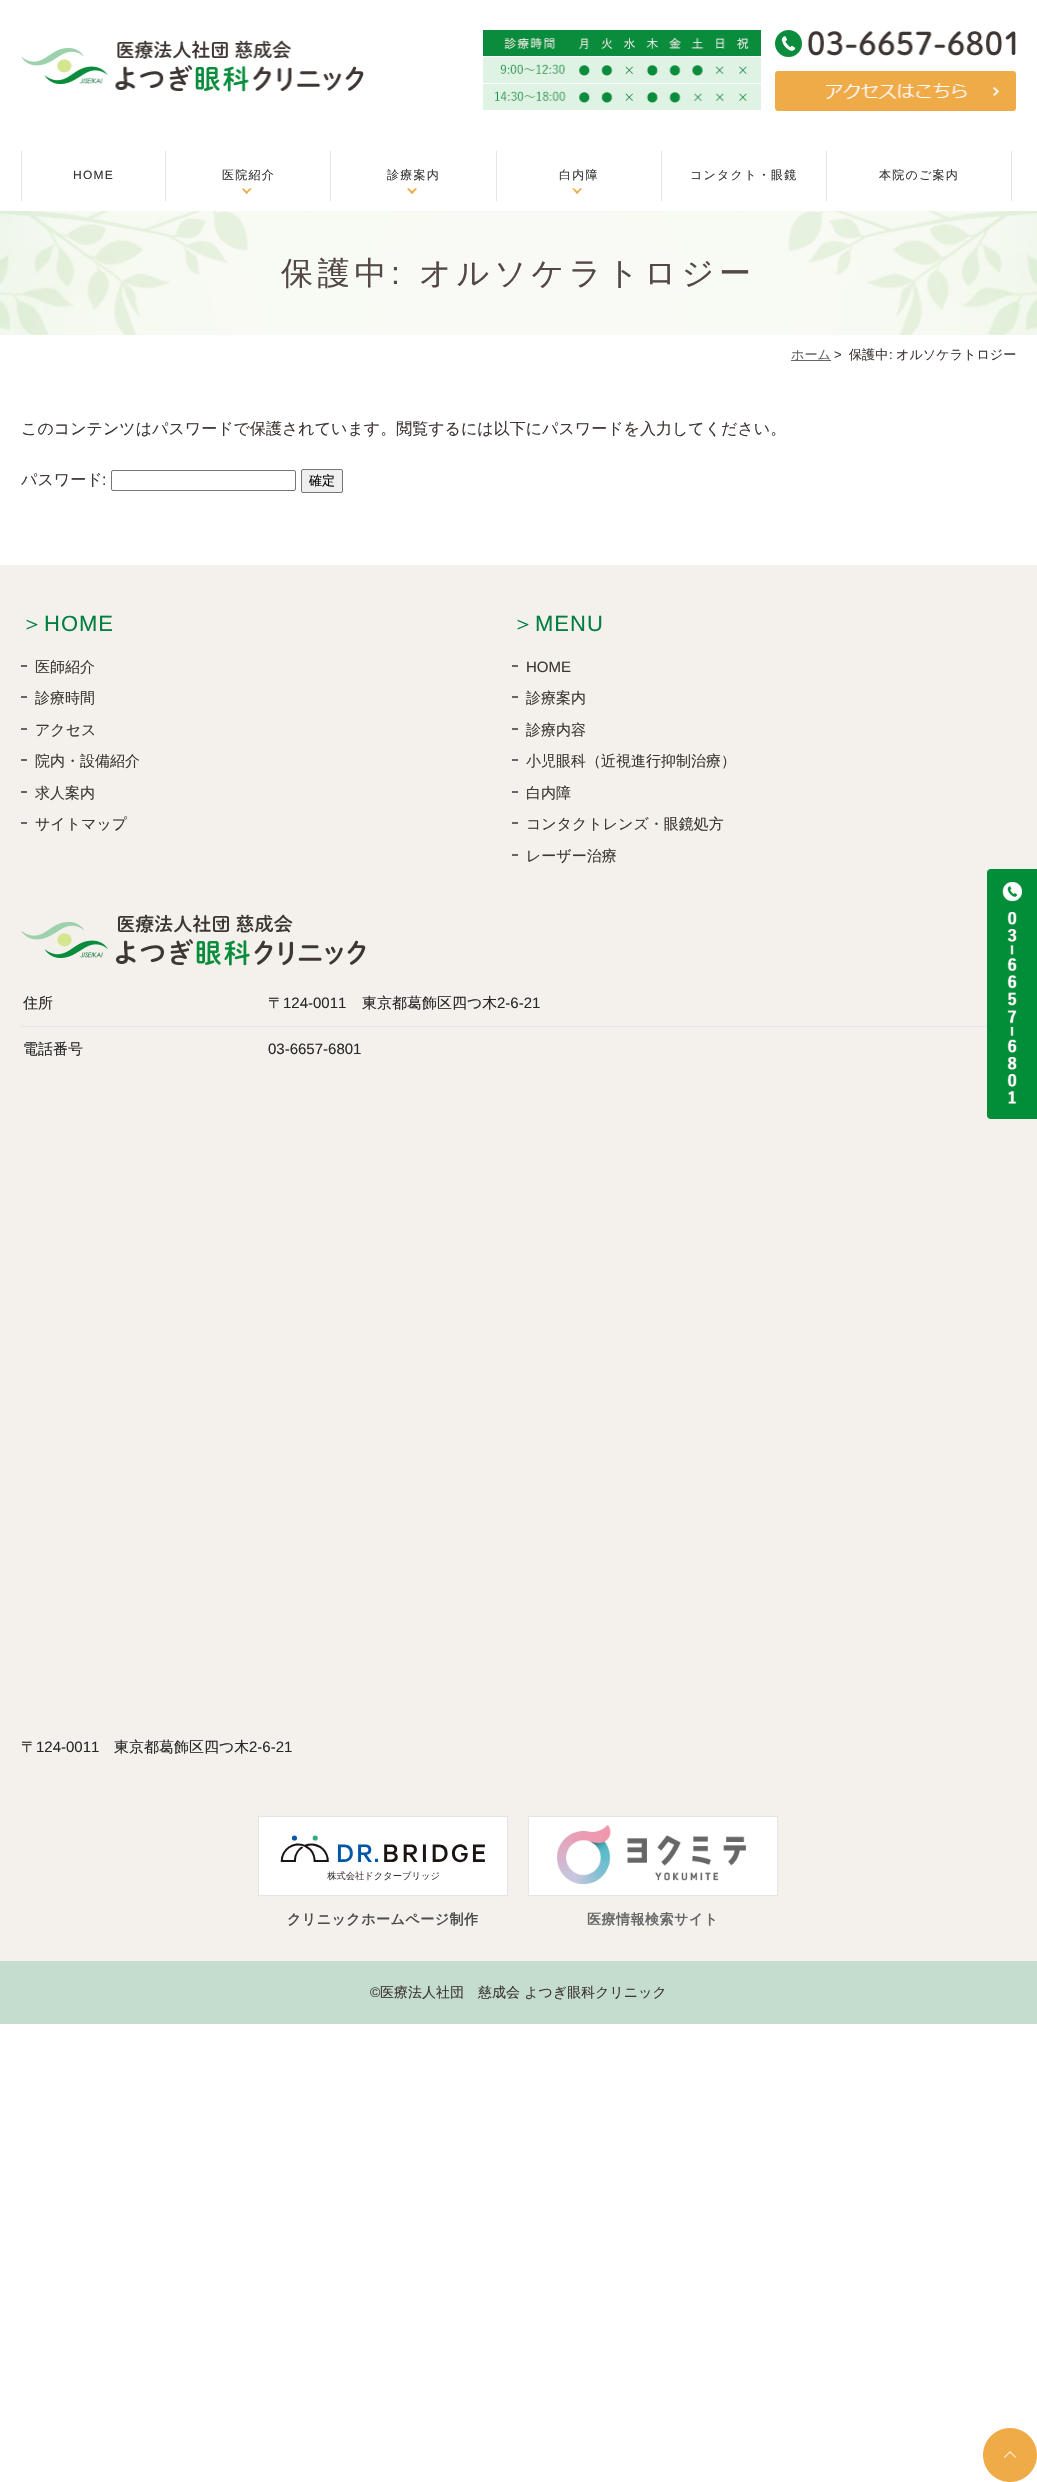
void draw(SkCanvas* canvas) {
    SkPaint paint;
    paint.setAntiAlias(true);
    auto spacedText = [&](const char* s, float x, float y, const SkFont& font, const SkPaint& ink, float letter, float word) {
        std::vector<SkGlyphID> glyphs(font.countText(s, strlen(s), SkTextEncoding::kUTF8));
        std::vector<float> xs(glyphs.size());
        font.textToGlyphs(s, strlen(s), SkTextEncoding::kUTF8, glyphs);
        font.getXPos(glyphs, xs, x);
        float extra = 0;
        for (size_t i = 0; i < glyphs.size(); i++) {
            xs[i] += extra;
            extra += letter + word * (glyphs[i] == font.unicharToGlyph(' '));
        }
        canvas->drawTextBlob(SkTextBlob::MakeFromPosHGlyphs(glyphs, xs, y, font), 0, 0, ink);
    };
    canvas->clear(0xFFFFFFFF);
    canvas->drawImageRect(SkImages::DeferredFromEncodedData(SkData::MakeFromFileName("img1.png")), SkRect::MakeXYWH(21, 40, 343, 52), SkSamplingOptions());
    canvas->drawImageRect(SkImages::DeferredFromEncodedData(SkData::MakeFromFileName("img2.png")), SkRect::MakeXYWH(483, 30, 278, 80), SkSamplingOptions());
    canvas->drawImageRect(SkImages::DeferredFromEncodedData(SkData::MakeFromFileName("img3.png")), SkRect::MakeXYWH(775, 30, 241, 27), SkSamplingOptions());
    canvas->drawImageRect(SkImages::DeferredFromEncodedData(SkData::MakeFromFileName("img4.png")), SkRect::MakeXYWH(775, 71, 241, 40), SkSamplingOptions());
    paint.setColor(0xFFE3E3E3);
    canvas->drawRect(SkRect::MakeXYWH(165, 151, 1, 50), paint);
    canvas->drawRect(SkRect::MakeXYWH(21, 151, 1, 50), paint);
    SkFont font1(fontMgr->matchFamilyStyle("Liberation Sans", SkFontStyle::Normal()), 12);
    font1.setSubpixel(true);
    paint.setColor(0xFF333333);
    spacedText("HOME", 73, 179, font1, paint, 1.25f, 0);
    paint.setColor(0xFFE3E3E3);
    canvas->drawRect(SkRect::MakeXYWH(330, 151, 1, 50), paint);
    SkFont font2(fontMgr->matchFamilyStyle("WenQuanYi Zen Hei", SkFontStyle(500, SkFontStyle::kNormal_Width, SkFontStyle::kUpright_Slant)), 12);
    font2.setSubpixel(true);
    paint.setColor(0xFF333333);
    spacedText("医院紹介", 222, 179, font2, paint, 1.25f, 0);
    paint.setColor(0xFFF0AB49);
    canvas->drawPath(SkPathBuilder().moveTo(251.5f, 189).lineTo(246.5f, 194).lineTo(245.5f, 192.5f).lineTo(250, 188).close().detach(), paint);
    canvas->drawPath(SkPathBuilder().moveTo(248, 192.5f).lineTo(246.5f, 194).lineTo(242, 189).lineTo(243, 188).close().detach(), paint);
    paint.setColor(0xFFE3E3E3);
    canvas->drawRect(SkRect::MakeXYWH(496, 151, 1, 50), paint);
    paint.setColor(0xFF333333);
    spacedText("診療案内", 387, 179, font2, paint, 1.25f, 0);
    paint.setColor(0xFFF0AB49);
    canvas->drawPath(SkPathBuilder().moveTo(417, 189).lineTo(412, 194).lineTo(410.5f, 192.5f).lineTo(415.5f, 188).close().detach(), paint);
    canvas->drawPath(SkPathBuilder().moveTo(413.5f, 192.5f).lineTo(412, 194).lineTo(407, 189).lineTo(408.5f, 188).close().detach(), paint);
    paint.setColor(0xFFE3E3E3);
    canvas->drawRect(SkRect::MakeXYWH(661, 151, 1, 50), paint);
    paint.setColor(0xFF333333);
    spacedText("白内障", 559, 179, font2, paint, 1.25f, 0);
    paint.setColor(0xFFF0AB49);
    canvas->drawPath(SkPathBuilder().moveTo(582, 189).lineTo(577, 194).lineTo(576, 192.5f).lineTo(580.5f, 188).close().detach(), paint);
    canvas->drawPath(SkPathBuilder().moveTo(578.5f, 192.5f).lineTo(577, 194).lineTo(572.5f, 189).lineTo(573.5f, 188).close().detach(), paint);
    paint.setColor(0xFFE3E3E3);
    canvas->drawRect(SkRect::MakeXYWH(826, 151, 1, 50), paint);
    paint.setColor(0xFF333333);
    spacedText("コンタクト・眼鏡", 690, 179, font2, paint, 1.25f, 0);
    paint.setColor(0xFFE3E3E3);
    canvas->drawRect(SkRect::MakeXYWH(1011, 151, 1, 50), paint);
    paint.setColor(0xFF333333);
    spacedText("本院のご案内", 879, 179, font2, paint, 1.25f, 0);
    canvas->drawImageRect(SkImages::DeferredFromEncodedData(SkData::MakeFromFileName("img5.png")), SkRect::MakeXYWH(0, 211, 1037, 124), SkSamplingOptions());
    SkFont font3(fontMgr->matchFamilyStyle("WenQuanYi Zen Hei", SkFontStyle(500, SkFontStyle::kNormal_Width, SkFontStyle::kUpright_Slant)), 32);
    font3.setSubpixel(true);
    paint.setColor(0xFF544845);
    spacedText("保護中", 281, 284, font3, paint, 4.75f, 0);
    SkFont font4(fontMgr->matchFamilyStyle("Liberation Sans", SkFontStyle::Normal()), 32);
    font4.setSubpixel(true);
    spacedText(":", 391, 284, font4, paint, 4.75f, 0);
    spacedText("オルソケラトロジー", 419, 284, font3, paint, 4.75f, 0);
    paint.setColor(0xFF666666);
    canvas->drawRect(SkRect::MakeXYWH(791, 360, 40, 1), paint);
    SkFont font5(fontMgr->matchFamilyStyle("WenQuanYi Zen Hei", SkFontStyle(500, SkFontStyle::kNormal_Width, SkFontStyle::kUpright_Slant)), 13.1f);
    font5.setSubpixel(true);
    canvas->drawString("ホーム", 791, 359, font5, paint);
    SkFont font6(fontMgr->matchFamilyStyle("Liberation Sans", SkFontStyle::Normal()), 13.1f);
    font6.setSubpixel(true);
    paint.setColor(0xFF3E3633);
    canvas->drawString(">", 834, 359, font6, paint);
    canvas->drawString("保護中", 849, 359, font5, paint);
    canvas->drawString(":", 889, 359, font6, paint);
    canvas->drawString("オルソケラトロジー", 896, 359, font5, paint);
    SkFont font7(fontMgr->matchFamilyStyle("WenQuanYi Zen Hei", SkFontStyle(500, SkFontStyle::kNormal_Width, SkFontStyle::kUpright_Slant)), 16);
    font7.setSubpixel(true);
    canvas->drawString("このコンテンツはパスワードで保護されています。閲覧するには以下にパスワードを入力してください。", 21, 434, font7, paint);
    canvas->drawString("パスワード", 21, 485, font7, paint);
    SkFont font8(fontMgr->matchFamilyStyle("Liberation Sans", SkFontStyle::Normal()), 16);
    font8.setSubpixel(true);
    canvas->drawString(":", 102, 485, font8, paint);
    paint.setStyle(SkPaint::kStroke_Style);
    paint.setStrokeWidth(1);
    paint.setColor(0xFF767676);
    canvas->drawRoundRect(SkRect::MakeXYWH(111.5f, 470.5f, 184, 20), 1.5f, 1.5f, paint);
    paint.setStyle(SkPaint::kFill_Style);
    paint.setColor(0xFFEFEFEF);
    canvas->drawRoundRect(SkRect::MakeXYWH(301.5f, 469.5f, 41, 23), 1.5f, 1.5f, paint);
    paint.setStyle(SkPaint::kStroke_Style);
    paint.setColor(0xFF767676);
    canvas->drawRoundRect(SkRect::MakeXYWH(301.5f, 469.5f, 41, 23), 1.5f, 1.5f, paint);
    SkFont font9(fontMgr->matchFamilyStyle("WenQuanYi Zen Hei", SkFontStyle(500, SkFontStyle::kNormal_Width, SkFontStyle::kUpright_Slant)), 13);
    font9.setSubpixel(true);
    paint.setStyle(SkPaint::kFill_Style);
    paint.setColor(0xFF000000);
    canvas->drawString("確定", 309, 485, font9, paint);
    paint.setColor(0xFFF4F1EC);
    canvas->drawRect(SkRect::MakeXYWH(0, 565, 1037, 1396), paint);
    canvas->drawImageRect(SkImages::DeferredFromEncodedData(SkData::MakeFromFileName("img6.png")), SkRect::MakeXYWH(987, 869, 50, 250), SkSamplingOptions());
    canvas->drawImageRect(SkImages::DeferredFromEncodedData(SkData::MakeFromFileName("img7.png")), SkRect::MakeXYWH(983, 2428, 54, 54), SkSamplingOptions());
    SkFont font10(fontMgr->matchFamilyStyle("WenQuanYi Zen Hei", SkFontStyle(500, SkFontStyle::kNormal_Width, SkFontStyle::kUpright_Slant)), 22);
    font10.setSubpixel(true);
    paint.setColor(0xFF007E41);
    spacedText("＞", 21, 631, font10, paint, 1, 0);
    SkFont font11(fontMgr->matchFamilyStyle("Liberation Sans", SkFontStyle::Normal()), 22);
    font11.setSubpixel(true);
    spacedText("HOME", 44, 631, font11, paint, 1, 0);
    paint.setColor(0xFF666666);
    canvas->drawRect(SkRect::MakeXYWH(21, 665, 6, 2), paint);
    SkFont font12(fontMgr->matchFamilyStyle("WenQuanYi Zen Hei", SkFontStyle(500, SkFontStyle::kNormal_Width, SkFontStyle::kUpright_Slant)), 15);
    font12.setSubpixel(true);
    paint.setColor(0xFF3E3633);
    canvas->drawString("医師紹介", 35, 672, font12, paint);
    paint.setColor(0xFF666666);
    canvas->drawRect(SkRect::MakeXYWH(21, 696, 6, 2), paint);
    paint.setColor(0xFF3E3633);
    canvas->drawString("診療時間", 35, 703, font12, paint);
    paint.setColor(0xFF666666);
    canvas->drawRect(SkRect::MakeXYWH(21, 728, 6, 2), paint);
    paint.setColor(0xFF3E3633);
    canvas->drawString("アクセス", 35, 735, font12, paint);
    paint.setColor(0xFF666666);
    canvas->drawRect(SkRect::MakeXYWH(21, 759, 6, 2), paint);
    paint.setColor(0xFF3E3633);
    canvas->drawString("院内・設備紹介", 35, 766, font12, paint);
    paint.setColor(0xFF666666);
    canvas->drawRect(SkRect::MakeXYWH(21, 791, 6, 2), paint);
    paint.setColor(0xFF3E3633);
    canvas->drawString("求人案内", 35, 798, font12, paint);
    paint.setColor(0xFF666666);
    canvas->drawRect(SkRect::MakeXYWH(21, 822, 6, 2), paint);
    paint.setColor(0xFF3E3633);
    canvas->drawString("サイトマップ", 35, 829, font12, paint);
    paint.setColor(0xFF007E41);
    spacedText("＞", 512, 631, font10, paint, 1, 0);
    spacedText("MENU", 535, 631, font11, paint, 1, 0);
    paint.setColor(0xFF666666);
    canvas->drawRect(SkRect::MakeXYWH(512, 665, 6, 2), paint);
    SkFont font13(fontMgr->matchFamilyStyle("Liberation Sans", SkFontStyle::Normal()), 15);
    font13.setSubpixel(true);
    paint.setColor(0xFF3E3633);
    canvas->drawString("HOME", 526, 672, font13, paint);
    paint.setColor(0xFF666666);
    canvas->drawRect(SkRect::MakeXYWH(512, 696, 6, 2), paint);
    paint.setColor(0xFF3E3633);
    canvas->drawString("診療案内", 526, 703, font12, paint);
    paint.setColor(0xFF666666);
    canvas->drawRect(SkRect::MakeXYWH(512, 728, 6, 2), paint);
    paint.setColor(0xFF3E3633);
    canvas->drawString("診療内容", 526, 735, font12, paint);
    paint.setColor(0xFF666666);
    canvas->drawRect(SkRect::MakeXYWH(512, 759, 6, 2), paint);
    paint.setColor(0xFF3E3633);
    canvas->drawString("小児眼科（近視進行抑制治療）", 526, 766, font12, paint);
    paint.setColor(0xFF666666);
    canvas->drawRect(SkRect::MakeXYWH(512, 791, 6, 2), paint);
    paint.setColor(0xFF3E3633);
    canvas->drawString("白内障", 526, 798, font12, paint);
    paint.setColor(0xFF666666);
    canvas->drawRect(SkRect::MakeXYWH(512, 822, 6, 2), paint);
    paint.setColor(0xFF3E3633);
    canvas->drawString("コンタクトレンズ・眼鏡処方", 526, 829, font12, paint);
    paint.setColor(0xFF666666);
    canvas->drawRect(SkRect::MakeXYWH(512, 854, 6, 2), paint);
    paint.setColor(0xFF3E3633);
    canvas->drawString("レーザー治療", 526, 861, font12, paint);
    canvas->drawImageRect(SkImages::DeferredFromEncodedData(SkData::MakeFromFileName("img8.png")), SkRect::MakeXYWH(21, 914, 345, 52), SkSamplingOptions());
    paint.setColor(0xFF282828);
    canvas->drawString("住所", 23, 1008, font12, paint);
    paint.setColor(0xFFE6E6E6);
    canvas->drawRect(SkRect::MakeXYWH(21, 1026, 966, 1), paint);
    paint.setColor(0xFF282828);
    canvas->drawString("〒", 268, 1008, font12, paint);
    canvas->drawString("124-0011", 283, 1008, font13, paint);
    canvas->drawString("東京都葛飾区四つ木", 362, 1008, font12, paint);
    canvas->drawString("2-6-21", 497, 1008, font13, paint);
    canvas->drawString("電話番号", 23, 1054, font12, paint);
    canvas->drawString("03-6657-6801", 268, 1054, font13, paint);
    canvas->drawString("〒", 21, 1752, font12, paint);
    canvas->drawString("124-0011", 36, 1752, font13, paint);
    canvas->drawString("東京都葛飾区四つ木", 114, 1752, font12, paint);
    canvas->drawString("2-6-21", 249, 1752, font13, paint);
    paint.setStyle(SkPaint::kStroke_Style);
    paint.setColor(0xFFE4E4E4);
    canvas->drawRect(SkRect::MakeXYWH(258.5f, 1816.5f, 249, 79), paint);
    canvas->drawImageRect(SkImages::DeferredFromEncodedData(SkData::MakeFromFileName("img9.png")), SkRect::MakeXYWH(259, 1817, 248, 78), SkSamplingOptions());
    SkFont font14(fontMgr->matchFamilyStyle("WenQuanYi Zen Hei", SkFontStyle::Bold()), 14);
    font14.setSubpixel(true);
    paint.setStyle(SkPaint::kFill_Style);
    paint.setColor(0xFF4D4D4D);
    spacedText("クリニックホームページ制作", 287, 1924, font14, paint, 0.5f, 0);
    paint.setStyle(SkPaint::kStroke_Style);
    paint.setColor(0xFFE4E4E4);
    canvas->drawRect(SkRect::MakeXYWH(528.5f, 1816.5f, 249, 79), paint);
    canvas->drawImageRect(SkImages::DeferredFromEncodedData(SkData::MakeFromFileName("img10.png")), SkRect::MakeXYWH(529, 1817, 248, 78), SkSamplingOptions());
    paint.setStyle(SkPaint::kFill_Style);
    paint.setColor(0xFF666666);
    spacedText("医療情報検索サイト", 587, 1924, font14, paint, 0.5f, 0);
    paint.setColor(0xFFC5DDCE);
    canvas->drawRect(SkRect::MakeXYWH(0, 1961, 1037, 63), paint);
    SkFont font15(fontMgr->matchFamilyStyle("Liberation Sans", SkFontStyle::Normal()), 14);
    font15.setSubpixel(true);
    paint.setColor(0xFF3E3633);
    canvas->drawString("©", 370, 1997, font15, paint);
    SkFont font16(fontMgr->matchFamilyStyle("WenQuanYi Zen Hei", SkFontStyle(500, SkFontStyle::kNormal_Width, SkFontStyle::kUpright_Slant)), 14);
    font16.setSubpixel(true);
    canvas->drawString("医療法人社団　慈成会 よつぎ眼科クリニック", 380, 1997, font16, paint);
}
